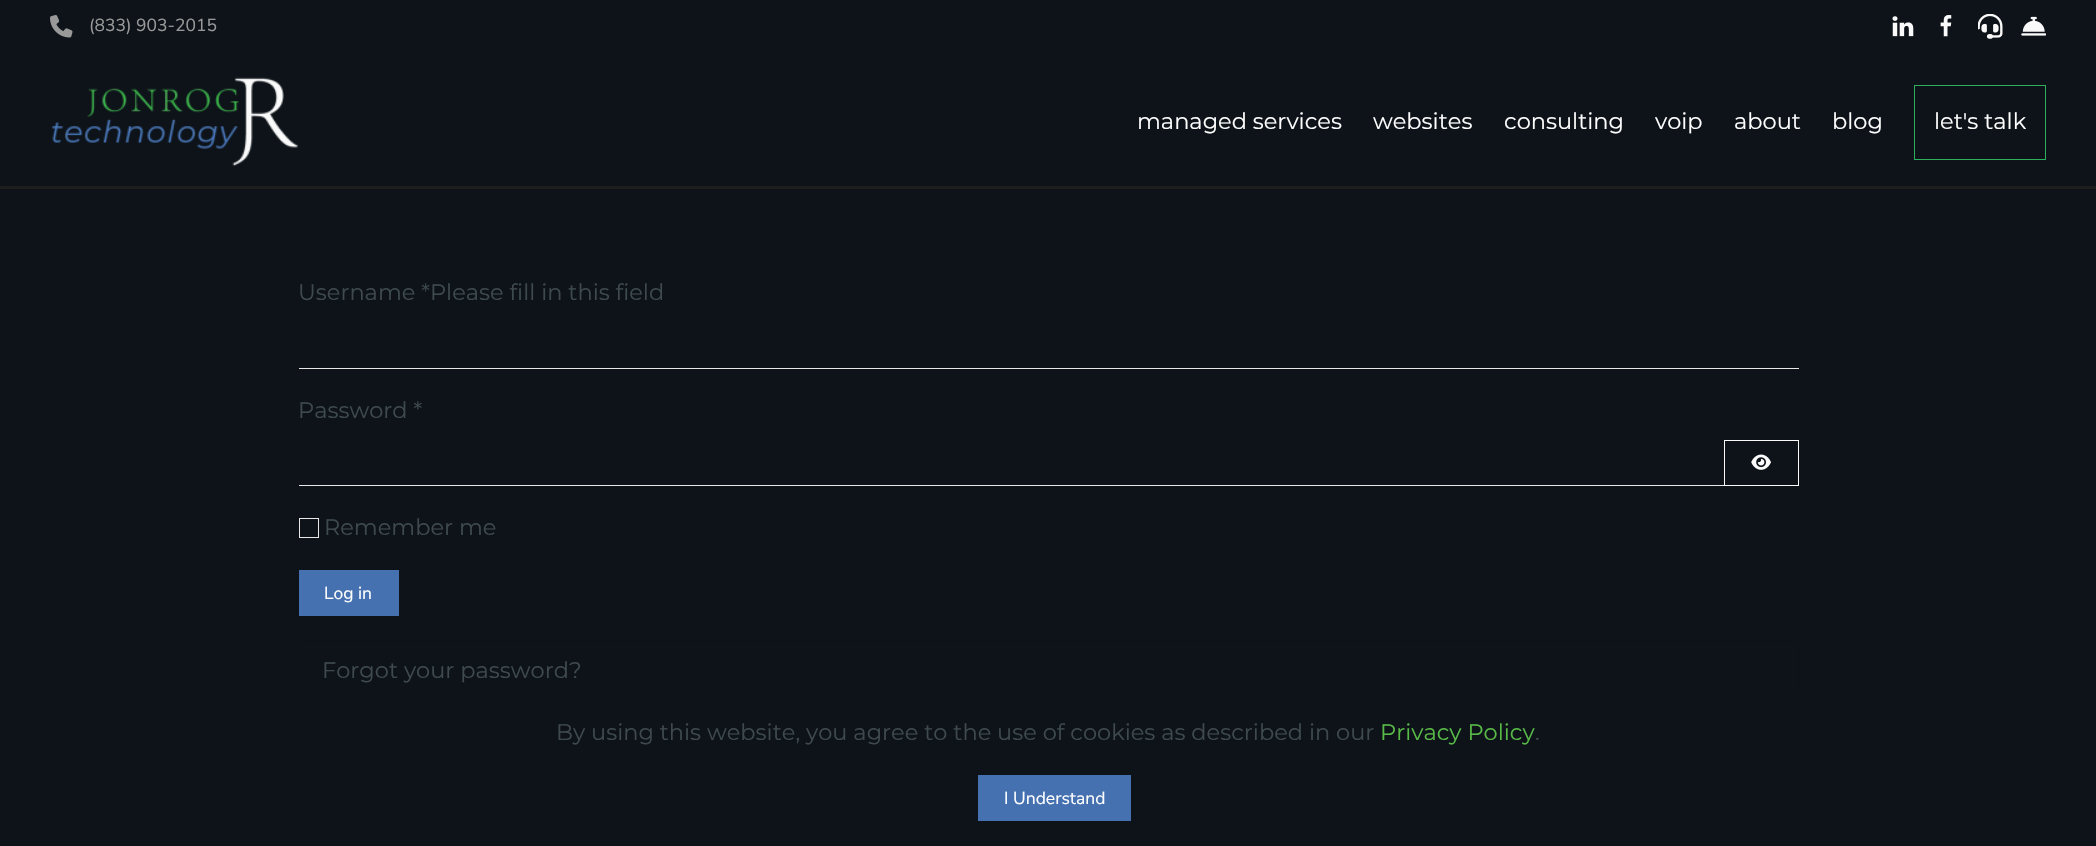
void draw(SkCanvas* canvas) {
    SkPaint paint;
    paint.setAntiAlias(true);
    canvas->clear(0xFF0D1319);
    canvas->drawImageRect(SkImages::DeferredFromEncodedData(SkData::MakeFromFileName("img1.png")), SkRect::MakeXYWH(50, 15, 23, 23), SkSamplingOptions());
    SkFont font1(fontMgr->matchFamilyStyle("Nunito Sans", SkFontStyle(200, SkFontStyle::kNormal_Width, SkFontStyle::kUpright_Slant)), 17.5f);
    font1.setSubpixel(true);
    paint.setColor(0xFF999999);
    canvas->drawString("(833) 903-2015", 89, 31, font1, paint);
    canvas->drawImageRect(SkImages::DeferredFromEncodedData(SkData::MakeFromFileName("img2.png")), SkRect::MakeXYWH(1892, 16, 22, 21), SkSamplingOptions());
    canvas->drawImageRect(SkImages::DeferredFromEncodedData(SkData::MakeFromFileName("img3.png")), SkRect::MakeXYWH(1940, 15, 12, 22), SkSamplingOptions());
    canvas->drawImageRect(SkImages::DeferredFromEncodedData(SkData::MakeFromFileName("img4.png")), SkRect::MakeXYWH(1978, 14, 25, 25), SkSamplingOptions());
    canvas->drawImageRect(SkImages::DeferredFromEncodedData(SkData::MakeFromFileName("img5.png")), SkRect::MakeXYWH(2021, 16, 25, 20), SkSamplingOptions());
    paint.setColor(0xFF1D1D1D);
    canvas->drawRect(SkRect::MakeXYWH(0, 186, 2096, 3), paint);
    canvas->drawImageRect(SkImages::DeferredFromEncodedData(SkData::MakeFromFileName("img6.png")), SkRect::MakeXYWH(51, 77, 247, 90), SkSamplingOptions());
    SkFont font2(fontMgr->matchFamilyStyle("Montserrat", SkFontStyle(100, SkFontStyle::kNormal_Width, SkFontStyle::kUpright_Slant)), 22.5f);
    font2.setSubpixel(true);
    paint.setColor(0xFFFFFFFF);
    canvas->drawString("managed services", 1137, 129, font2, paint);
    canvas->drawString("websites", 1373, 129, font2, paint);
    canvas->drawString("consulting", 1504, 129, font2, paint);
    canvas->drawString("voip", 1655, 129, font2, paint);
    canvas->drawString("about", 1734, 129, font2, paint);
    canvas->drawString("blog", 1832, 129, font2, paint);
    paint.setStyle(SkPaint::kStroke_Style);
    paint.setStrokeWidth(1);
    paint.setColor(0xFF2EAF5B);
    canvas->drawRect(SkRect::MakeXYWH(1914.5f, 85.5f, 131, 74), paint);
    paint.setStyle(SkPaint::kFill_Style);
    paint.setColor(0xFFFFFFFF);
    canvas->drawString("let's talk", 1934, 129, font2, paint);
    paint.setColor(0xFF3E4A4F);
    canvas->drawString("Username *Please fill in this field", 298, 300, font2, paint);
    paint.setColor(0xFFE8E8E8);
    canvas->drawRect(SkRect::MakeXYWH(299, 368, 1500, 1), paint);
    paint.setColor(0xFF3E4A4F);
    canvas->drawString("Password *", 298, 418, font2, paint);
    paint.setColor(0xFFE8E8E8);
    canvas->drawRect(SkRect::MakeXYWH(299, 485, 1426, 1), paint);
    paint.setStyle(SkPaint::kStroke_Style);
    paint.setColor(0xFFFAFAFA);
    canvas->drawRect(SkRect::MakeXYWH(1724.5f, 440.5f, 74, 45), paint);
    canvas->drawImageRect(SkImages::DeferredFromEncodedData(SkData::MakeFromFileName("img7.png")), SkRect::MakeXYWH(1751, 454, 20, 16), SkSamplingOptions());
    paint.setColor(0xFFE8E8E8);
    canvas->drawRect(SkRect::MakeXYWH(299.5f, 518.5f, 19, 19), paint);
    paint.setStyle(SkPaint::kFill_Style);
    paint.setColor(0xFF3E4A4F);
    canvas->drawString("Remember me", 324, 535, font2, paint);
    paint.setColor(0xFF4571B1);
    canvas->drawRect(SkRect::MakeXYWH(299, 570, 100, 46), paint);
    paint.setColor(0xFFFFFFFF);
    canvas->drawString("Log in", 324, 599, font1, paint);
    paint.setStyle(SkPaint::kStroke_Style);
    paint.setColor(0xFF0B1116);
    canvas->drawPath(SkPathBuilder().moveTo(305, 641.5f).lineTo(1793, 641.5f).cubicTo(1796, 641.5f, 1798.5f, 644, 1798.5f, 647).lineTo(1798.5f, 699.5f).lineTo(299.5f, 699.5f).lineTo(299.5f, 647).cubicTo(299.5f, 644, 302, 641.5f, 305, 641.5f).close().detach(), paint);
    paint.setStyle(SkPaint::kFill_Style);
    paint.setColor(0xFF3E4A4F);
    canvas->drawString("Forgot your password?", 322, 678, font2, paint);
    paint.setColor(0xFF0D1319);
    canvas->drawRect(SkRect::MakeXYWH(299, 691, 1500, 9), paint);
    paint.setColor(0xFF3E4A4F);
    canvas->drawString("By using this website, you agree to the use of cookies as described in our", 556, 740, font2, paint);
    paint.setColor(0xFF58BA47);
    canvas->drawString("Privacy Policy", 1380, 740, font2, paint);
    paint.setColor(0xFF3E4A4F);
    canvas->drawString(".", 1535, 740, font2, paint);
    paint.setColor(0xFF4571B1);
    canvas->drawRect(SkRect::MakeXYWH(978, 775, 153, 46), paint);
    paint.setColor(0xFFFFFFFF);
    canvas->drawString("I Understand", 1004, 804, font1, paint);
}
